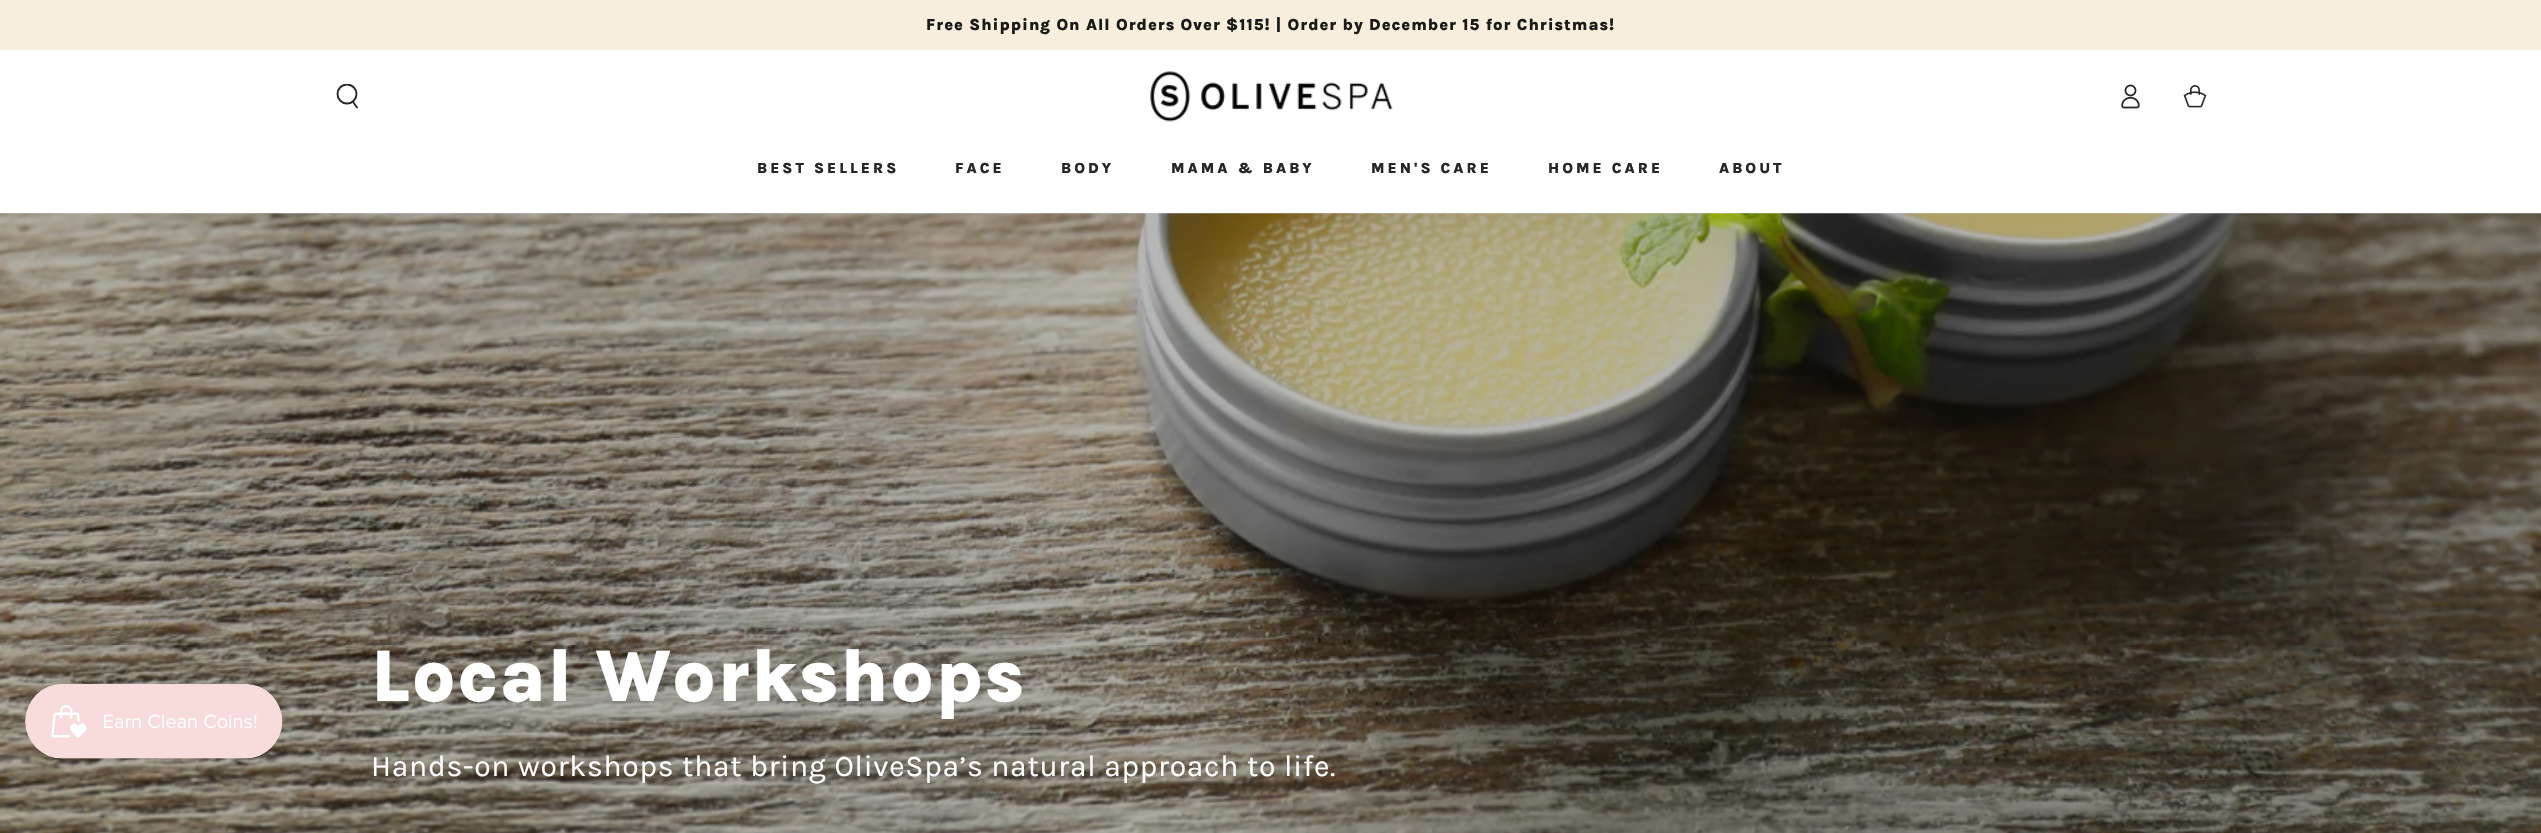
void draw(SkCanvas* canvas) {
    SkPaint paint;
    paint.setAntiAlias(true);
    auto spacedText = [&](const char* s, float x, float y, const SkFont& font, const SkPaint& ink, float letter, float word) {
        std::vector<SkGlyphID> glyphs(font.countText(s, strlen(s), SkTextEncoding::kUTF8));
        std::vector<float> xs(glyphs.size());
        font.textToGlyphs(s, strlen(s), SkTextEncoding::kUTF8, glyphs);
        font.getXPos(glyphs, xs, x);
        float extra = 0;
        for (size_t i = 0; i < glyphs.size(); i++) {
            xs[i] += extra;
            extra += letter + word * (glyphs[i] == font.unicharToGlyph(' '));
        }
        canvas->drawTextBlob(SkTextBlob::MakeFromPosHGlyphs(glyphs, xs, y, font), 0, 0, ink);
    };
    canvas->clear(0xFFFFFFFF);
    canvas->drawImageRect(SkImages::DeferredFromEncodedData(SkData::MakeFromFileName("img5.png")), SkRect::MakeXYWH(0, 213, 2541, 620), SkSamplingOptions());
    canvas->drawImageRect(SkImages::DeferredFromEncodedData(SkData::MakeFromFileName("img1.png")), SkRect::MakeXYWH(25, 684, 258, 75), SkSamplingOptions());
    paint.setColor(0xFFF7EEDD);
    canvas->drawRect(SkRect::MakeXYWH(0, 0, 2541, 50), paint);
    SkFont font1(fontMgr->matchFamilyStyle("Karla", SkFontStyle(800, SkFontStyle::kNormal_Width, SkFontStyle::kUpright_Slant)), 16.25f);
    font1.setSubpixel(true);
    paint.setColor(0xFF1A1B18);
    spacedText("Free Shipping On All Orders Over $115! | Order by December 15 for Christmas!", 926, 30, font1, paint, 0.98f, 0);
    paint.setColor(0x4DD2D5D9);
    canvas->drawRect(SkRect::MakeXYWH(0, 213, 2541, 1), paint);
    canvas->save();
    canvas->clipRect(SkRect::MakeXYWH(335, 84, 25, 25));
    paint.setStyle(SkPaint::kStroke_Style);
    paint.setStrokeWidth(1.9f);
    paint.setColor(0xFF282828);
    canvas->drawCircle(347, 94, 9.5f, paint);
    canvas->restore();
    paint.setStrokeCap(SkPaint::kRound_Cap);
    canvas->drawPath(SkPathBuilder().moveTo(353, 102).lineTo(357, 107.5f).detach(), paint);
    canvas->drawImageRect(SkImages::DeferredFromEncodedData(SkData::MakeFromFileName("img2.png")), SkRect::MakeXYWH(1149, 71, 244, 51), SkSamplingOptions());
    canvas->drawImageRect(SkImages::DeferredFromEncodedData(SkData::MakeFromFileName("img3.png")), SkRect::MakeXYWH(2121, 84, 19, 25), SkSamplingOptions());
    canvas->drawImageRect(SkImages::DeferredFromEncodedData(SkData::MakeFromFileName("img4.png")), SkRect::MakeXYWH(2183, 85, 24, 23), SkSamplingOptions());
    SkFont font2(fontMgr->matchFamilyStyle("Karla", SkFontStyle(800, SkFontStyle::kNormal_Width, SkFontStyle::kUpright_Slant)), 15);
    font2.setSubpixel(true);
    paint.setStyle(SkPaint::kFill_Style);
    spacedText("BEST SELLERS", 757, 173, font2, paint, 3, 0);
    spacedText("FACE", 955, 173, font2, paint, 3, 0);
    spacedText("BODY", 1061, 173, font2, paint, 3, 0);
    spacedText("MAMA & BABY", 1171, 173, font2, paint, 3, 0);
    spacedText("MEN'S CARE", 1371, 173, font2, paint, 3, 0);
    spacedText("HOME CARE", 1548, 173, font2, paint, 3, 0);
    spacedText("ABOUT", 1719, 173, font2, paint, 3, 0);
    SkFont font3(fontMgr->matchFamilyStyle("Karla", SkFontStyle(800, SkFontStyle::kNormal_Width, SkFontStyle::kUpright_Slant)), 75);
    font3.setSubpixel(true);
    paint.setColor(0xFFFFFFFF);
    spacedText("Local Workshops", 371, 701, font3, paint, 1.5f, 0);
    SkFont font4(fontMgr->matchFamilyStyle("Karla", SkFontStyle::Normal()), 30);
    font4.setSubpixel(true);
    spacedText("Hands-on workshops that bring OliveSpa’s natural approach to life.", 371, 776, font4, paint, 0.75f, 0);
}
